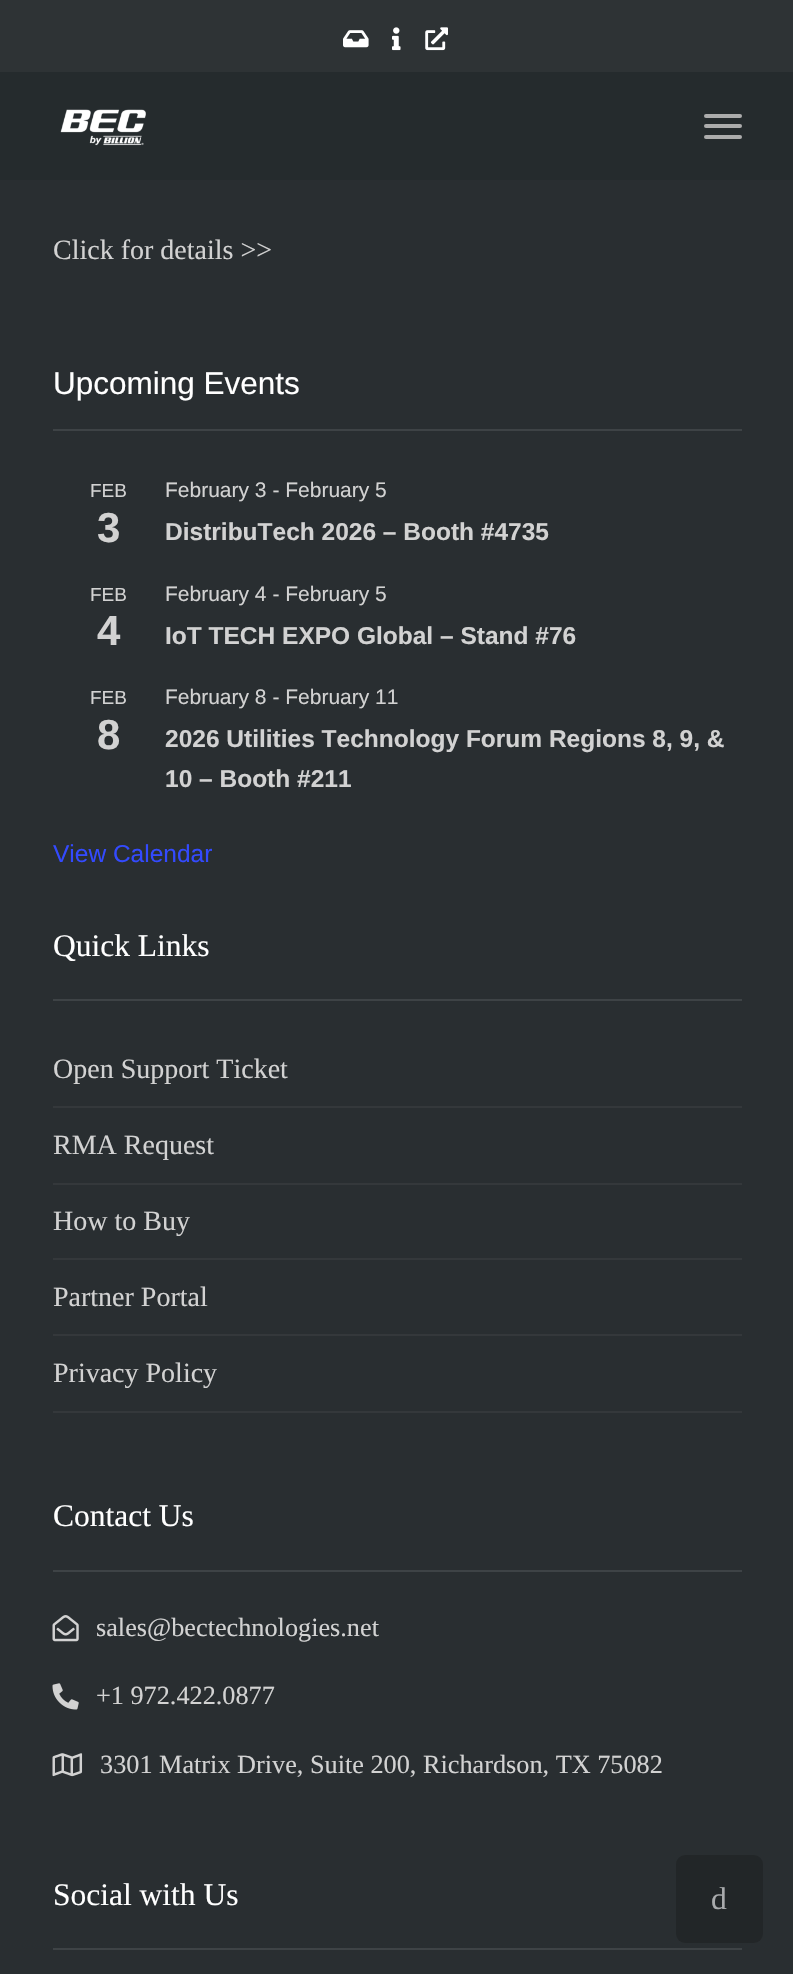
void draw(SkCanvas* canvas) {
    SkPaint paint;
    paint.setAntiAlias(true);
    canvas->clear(0xFF292E31);
    paint.setColor(0xFF252B2D);
    canvas->drawRect(SkRect::MakeXYWH(0, 72, 793, 108), paint);
    paint.setColor(0xFF2E3335);
    canvas->drawRect(SkRect::MakeXYWH(0, 0, 793, 72), paint);
    canvas->drawImageRect(SkImages::DeferredFromEncodedData(SkData::MakeFromFileName("img1.png")), SkRect::MakeXYWH(343, 30, 26, 18), SkSamplingOptions());
    canvas->drawImageRect(SkImages::DeferredFromEncodedData(SkData::MakeFromFileName("img2.png")), SkRect::MakeXYWH(392, 27, 9, 24), SkSamplingOptions());
    canvas->drawImageRect(SkImages::DeferredFromEncodedData(SkData::MakeFromFileName("img3.png")), SkRect::MakeXYWH(425, 27, 23, 24), SkSamplingOptions());
    canvas->drawImageRect(SkImages::DeferredFromEncodedData(SkData::MakeFromFileName("img4.png")), SkRect::MakeXYWH(60, 109, 86, 37), SkSamplingOptions());
    paint.setColor(0xFFACACAC);
    canvas->drawRoundRect(SkRect::MakeXYWH(704, 114, 38, 4), 2, 2, paint);
    canvas->drawRoundRect(SkRect::MakeXYWH(704, 124, 38, 4), 2, 2, paint);
    canvas->drawRoundRect(SkRect::MakeXYWH(704, 135, 38, 4), 2, 2, paint);
    SkFont font1(fontMgr->matchFamilyStyle("Liberation Serif", SkFontStyle::Normal()), 28);
    font1.setSubpixel(true);
    paint.setColor(0xFFD2D2D2);
    canvas->drawString("Click for details >>", 53, 259, font1, paint);
    paint.setColor(0xFF3E4346);
    canvas->drawRect(SkRect::MakeXYWH(53, 429, 689, 2), paint);
    SkFont font2(fontMgr->matchFamilyStyle("Liberation Sans", SkFontStyle::Normal()), 31.5f);
    font2.setSubpixel(true);
    paint.setColor(0xFFFFFFFF);
    canvas->drawString("Upcoming Events", 53, 394, font2, paint);
    SkFont font3(fontMgr->matchFamilyStyle("Liberation Sans", SkFontStyle::Normal()), 19);
    font3.setSubpixel(true);
    paint.setColor(0xFFD2D2D2);
    canvas->drawString("FEB", 90, 497, font3, paint);
    SkFont font4(fontMgr->matchFamilyStyle("Liberation Sans", SkFontStyle::Bold()), 42);
    font4.setSubpixel(true);
    canvas->drawString("3", 97, 542, font4, paint);
    SkFont font5(fontMgr->matchFamilyStyle("Liberation Sans", SkFontStyle::Normal()), 21);
    font5.setSubpixel(true);
    canvas->drawString("February 3 - February 5", 165, 497, font5, paint);
    SkFont font6(fontMgr->matchFamilyStyle("Liberation Sans", SkFontStyle::Bold()), 24.5f);
    font6.setSubpixel(true);
    canvas->drawString("DistribuTech 2026 – Booth #4735", 165, 540, font6, paint);
    canvas->drawString("FEB", 90, 601, font3, paint);
    canvas->drawString("4", 97, 645, font4, paint);
    canvas->drawString("February 4 - February 5", 165, 601, font5, paint);
    canvas->drawString("IoT TECH EXPO Global – Stand #76", 165, 644, font6, paint);
    canvas->drawString("FEB", 90, 704, font3, paint);
    canvas->drawString("8", 97, 749, font4, paint);
    canvas->drawString("February 8 - February 11", 165, 704, font5, paint);
    canvas->drawString("2026 Utilities Technology Forum Regions 8, 9, &", 165, 747, font6, paint);
    canvas->drawString("10 – Booth #211", 165, 787, font6, paint);
    SkFont font7(fontMgr->matchFamilyStyle("Liberation Sans", SkFontStyle::Normal()), 24.5f);
    font7.setSubpixel(true);
    paint.setColor(0xFF334AFF);
    canvas->drawString("View Calendar", 53, 862, font7, paint);
    paint.setColor(0xFF3E4346);
    canvas->drawRect(SkRect::MakeXYWH(53, 999, 689, 2), paint);
    SkFont font8(fontMgr->matchFamilyStyle("Liberation Serif", SkFontStyle::Normal()), 31.5f);
    font8.setSubpixel(true);
    paint.setColor(0xFFFFFFFF);
    canvas->drawString("Quick Links", 53, 956, font8, paint);
    paint.setColor(0xFF34383B);
    canvas->drawRect(SkRect::MakeXYWH(53, 1106, 689, 2), paint);
    paint.setColor(0xFFD2D2D2);
    canvas->drawString("Open Support Ticket", 53, 1078, font1, paint);
    paint.setColor(0xFF34383B);
    canvas->drawRect(SkRect::MakeXYWH(53, 1183, 689, 2), paint);
    paint.setColor(0xFFD2D2D2);
    canvas->drawString("RMA Request", 53, 1154, font1, paint);
    paint.setColor(0xFF34383B);
    canvas->drawRect(SkRect::MakeXYWH(53, 1258, 689, 2), paint);
    paint.setColor(0xFFD2D2D2);
    canvas->drawString("How to Buy", 53, 1230, font1, paint);
    paint.setColor(0xFF34383B);
    canvas->drawRect(SkRect::MakeXYWH(53, 1334, 689, 2), paint);
    paint.setColor(0xFFD2D2D2);
    canvas->drawString("Partner Portal", 53, 1306, font1, paint);
    paint.setColor(0xFF34383B);
    canvas->drawRect(SkRect::MakeXYWH(53, 1411, 689, 2), paint);
    paint.setColor(0xFFD2D2D2);
    canvas->drawString("Privacy Policy", 53, 1382, font1, paint);
    paint.setColor(0xFF3E4346);
    canvas->drawRect(SkRect::MakeXYWH(53, 1570, 689, 2), paint);
    paint.setColor(0xFFFFFFFF);
    canvas->drawString("Contact Us", 53, 1526, font8, paint);
    canvas->drawImageRect(SkImages::DeferredFromEncodedData(SkData::MakeFromFileName("img5.png")), SkRect::MakeXYWH(52, 1615, 27, 27), SkSamplingOptions());
    SkFont font9(fontMgr->matchFamilyStyle("Liberation Serif", SkFontStyle::Normal()), 26.25f);
    font9.setSubpixel(true);
    paint.setColor(0xFFD2D2D2);
    canvas->drawString("sales@bectechnologies.net", 96, 1636, font9, paint);
    canvas->drawImageRect(SkImages::DeferredFromEncodedData(SkData::MakeFromFileName("img6.png")), SkRect::MakeXYWH(52, 1683, 27, 27), SkSamplingOptions());
    canvas->drawString("+1 972.422.0877", 96, 1704, font9, paint);
    canvas->drawImageRect(SkImages::DeferredFromEncodedData(SkData::MakeFromFileName("img7.png")), SkRect::MakeXYWH(52, 1753, 31, 24), SkSamplingOptions());
    canvas->drawString("3301 Matrix Drive, Suite 200, Richardson, TX 75082", 100, 1773, font9, paint);
    paint.setColor(0xFF3E4346);
    canvas->drawRect(SkRect::MakeXYWH(53, 1948, 689, 2), paint);
    paint.setColor(0xFFFFFFFF);
    canvas->drawString("Social with Us", 53, 1905, font8, paint);
    paint.setColor(0xFF222628);
    canvas->drawRoundRect(SkRect::MakeXYWH(676, 1855, 87, 88), 9, 9, paint);
    paint.setColor(0xFFA9ABAD);
    canvas->drawString("d", 711, 1909, font8, paint);
}
